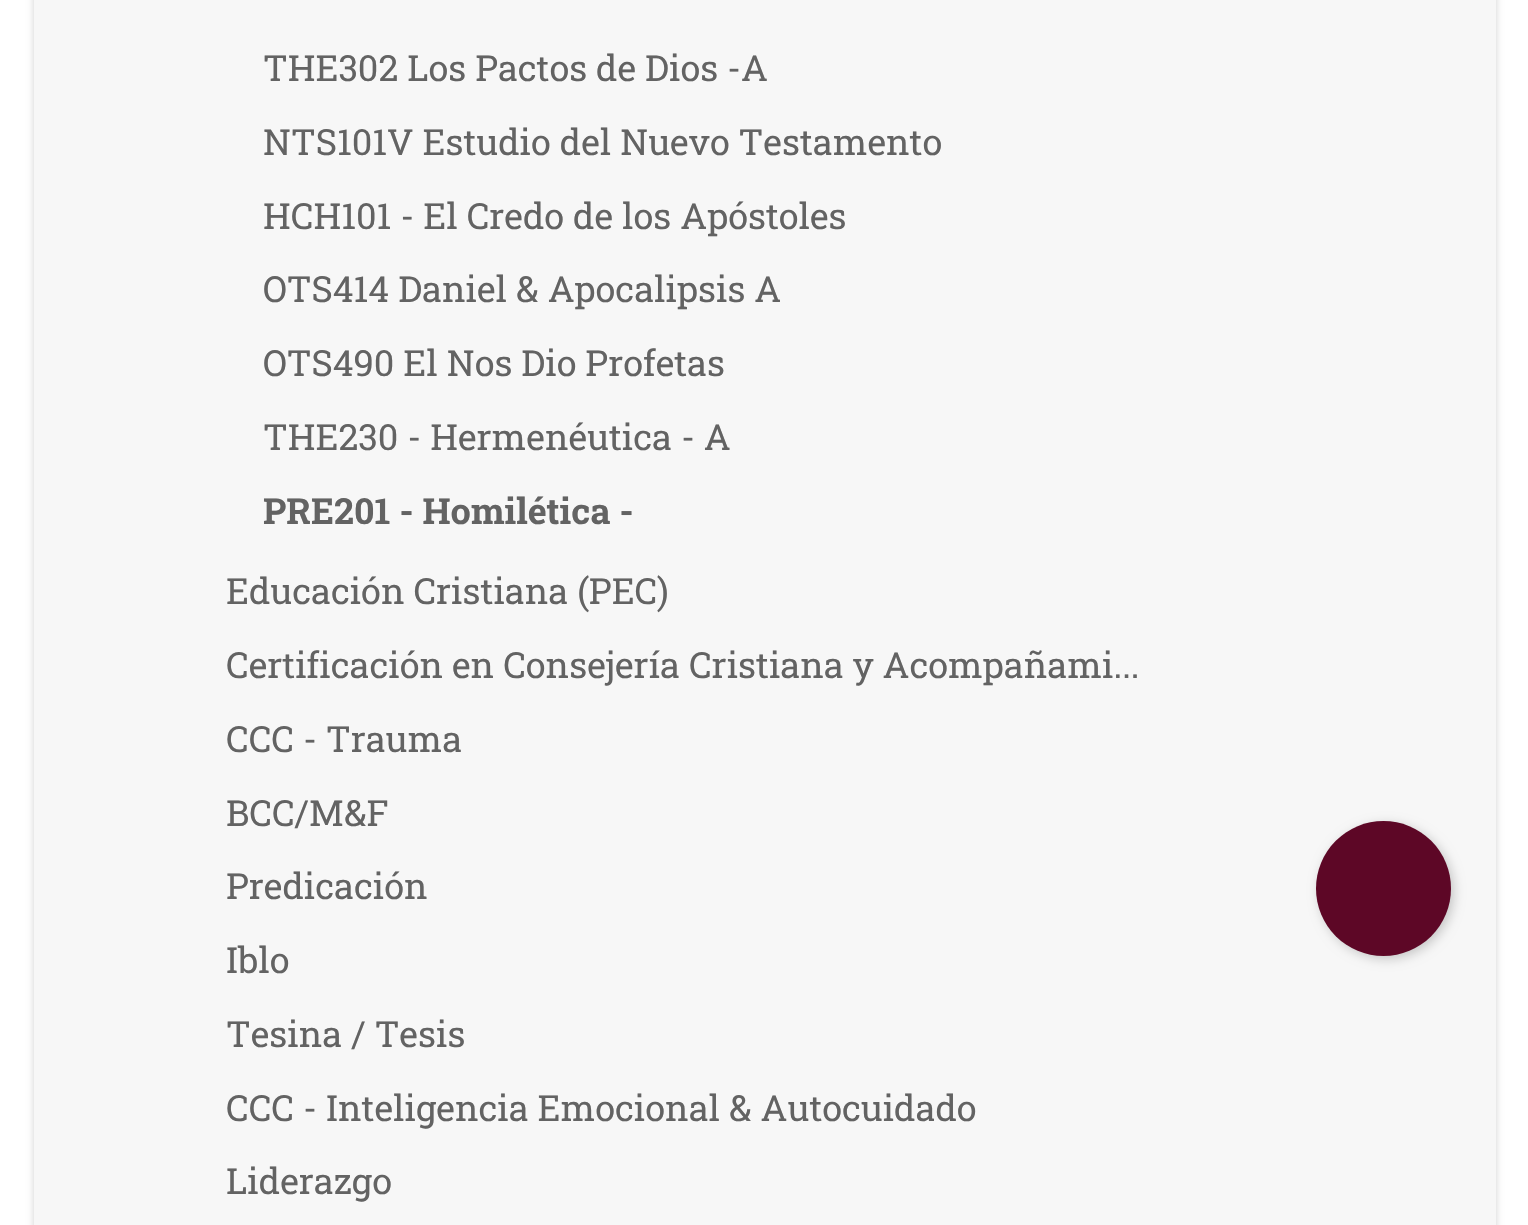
void draw(SkCanvas* canvas) {
    SkPaint paint;
    paint.setAntiAlias(true);
    canvas->clear(0xFFFFFFFF);
    paint.setColor(0x2E000000);
    paint.setMaskFilter(SkMaskFilter::MakeBlur(kNormal_SkBlurStyle, 3.5f));
    canvas->drawRoundRect(SkRect::MakeXYWH(34, -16, 1462, 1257), 5, 5, paint);
    paint.setMaskFilter(nullptr);
    paint.setColor(0xFFF7F7F7);
    canvas->drawRect(SkRect::MakeXYWH(34, 0, 1462, 1225), paint);
    SkFont font1(fontMgr->matchFamilyStyle("Roboto Slab", SkFontStyle::Normal()), 36);
    font1.setSubpixel(true);
    paint.setColor(0xFF636363);
    canvas->drawString("THE302 Los Pactos de Dios -A", 263, 81, font1, paint);
    canvas->drawString("NTS101V Estudio del Nuevo Testamento", 263, 155, font1, paint);
    canvas->drawString("HCH101 - El Credo de los Apóstoles", 263, 229, font1, paint);
    canvas->drawString("OTS414 Daniel & Apocalipsis A", 263, 302, font1, paint);
    canvas->drawString("OTS490 El Nos Dio Profetas", 263, 376, font1, paint);
    canvas->drawString("THE230 - Hermenéutica - A", 263, 450, font1, paint);
    SkFont font2(fontMgr->matchFamilyStyle("Roboto Slab", SkFontStyle::Bold()), 36);
    font2.setSubpixel(true);
    canvas->drawString("PRE201 - Homilética -", 263, 524, font2, paint);
    canvas->drawString("Educación Cristiana (PEC)", 226, 604, font1, paint);
    canvas->drawString("Certificación en Consejería Cristiana y Acompañami...", 226, 678, font1, paint);
    canvas->drawString("CCC - Trauma", 226, 752, font1, paint);
    canvas->drawString("BCC/M&F", 226, 826, font1, paint);
    canvas->drawString("Predicación", 226, 899, font1, paint);
    canvas->drawString("Iblo", 226, 973, font1, paint);
    canvas->drawString("Tesina / Tesis", 226, 1047, font1, paint);
    canvas->drawString("CCC - Inteligencia Emocional & Autocuidado", 226, 1121, font1, paint);
    canvas->drawString("Liderazgo", 226, 1194, font1, paint);
    paint.setColor(0x33000000);
    paint.setMaskFilter(SkMaskFilter::MakeBlur(kNormal_SkBlurStyle, 5.5f));
    canvas->drawRoundRect(SkRect::MakeXYWH(1319, 824, 135, 135), 67.5f, 67.5f, paint);
    paint.setMaskFilter(nullptr);
    paint.setColor(0xFF5D0726);
    canvas->drawCircle(1383.5f, 888.5f, 67.5f, paint);
}
